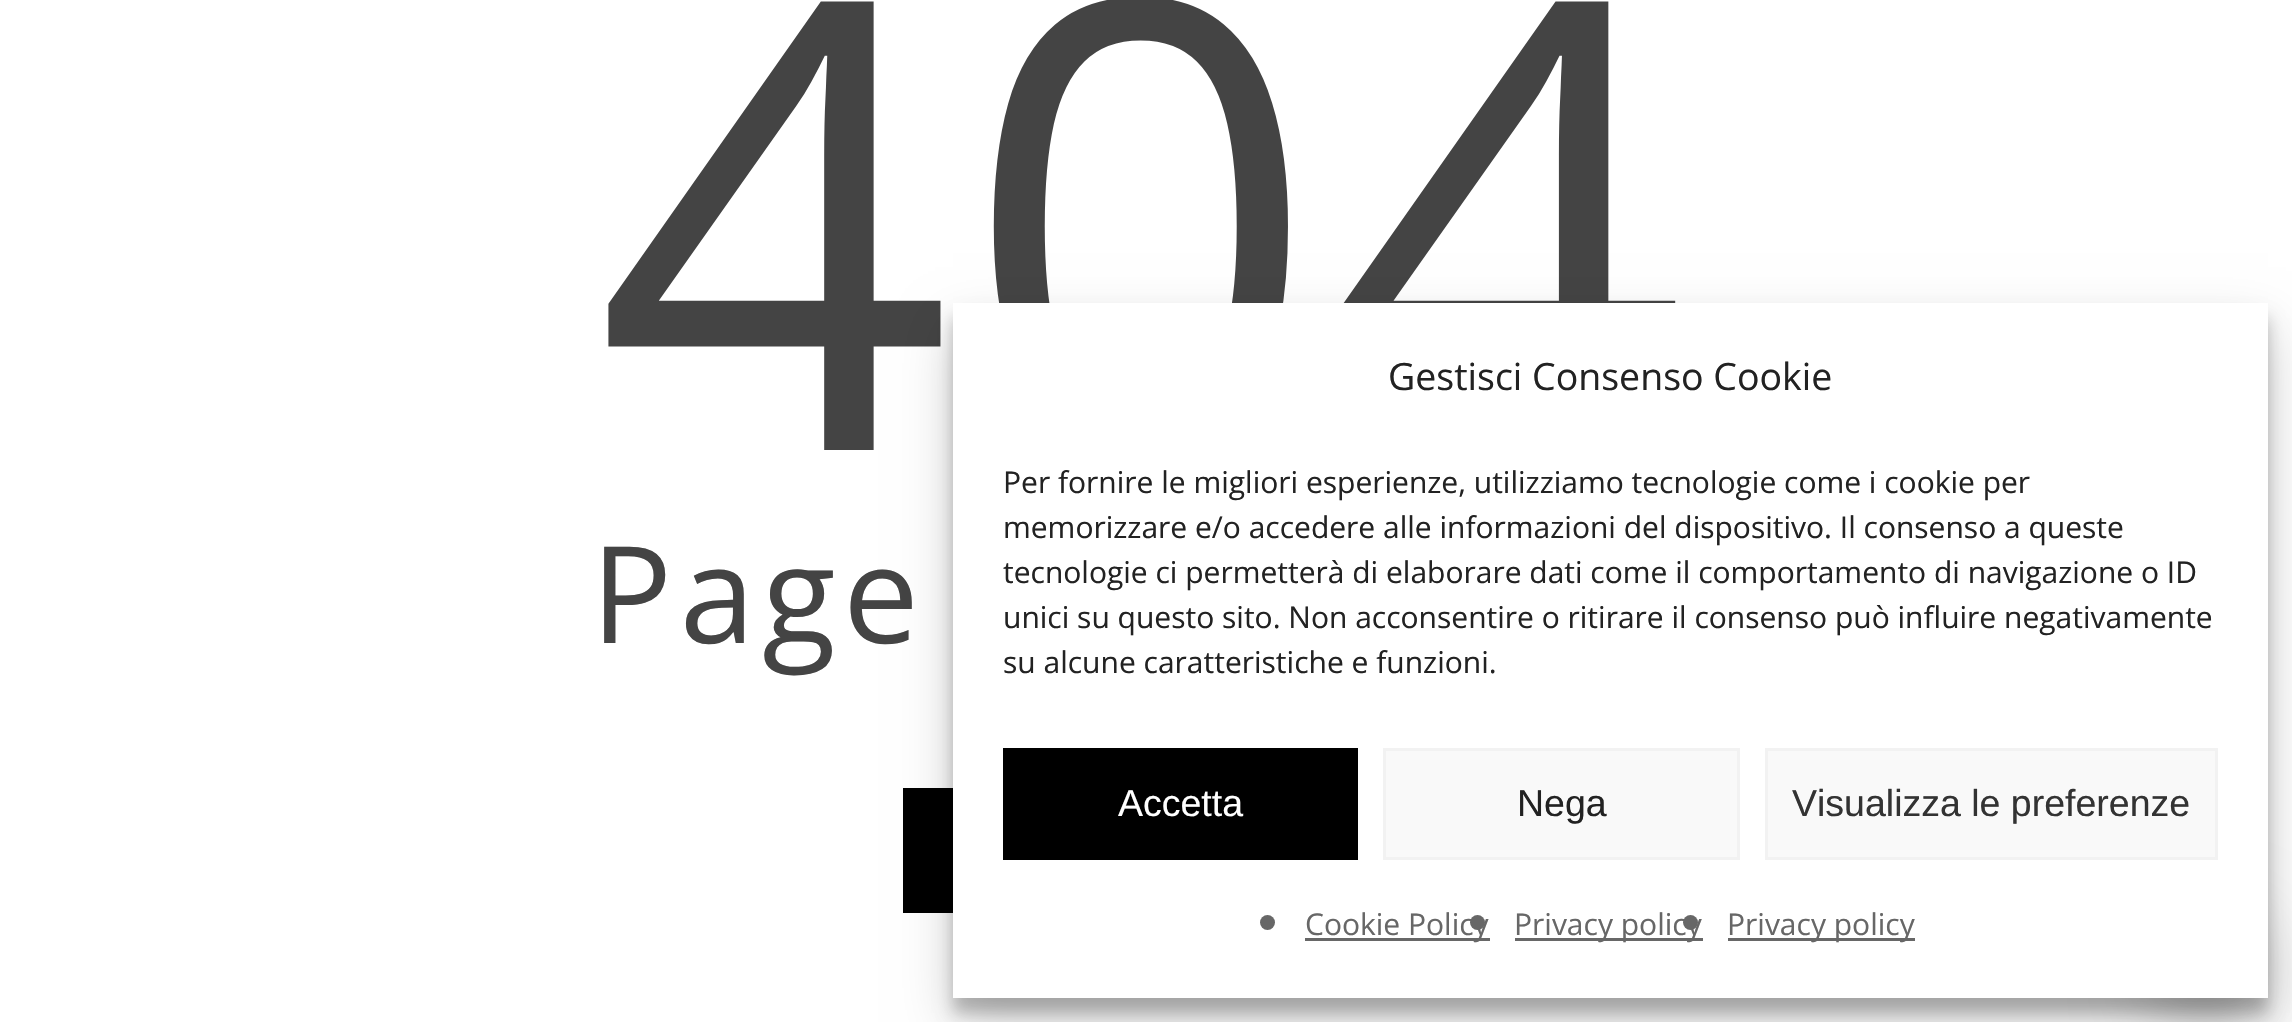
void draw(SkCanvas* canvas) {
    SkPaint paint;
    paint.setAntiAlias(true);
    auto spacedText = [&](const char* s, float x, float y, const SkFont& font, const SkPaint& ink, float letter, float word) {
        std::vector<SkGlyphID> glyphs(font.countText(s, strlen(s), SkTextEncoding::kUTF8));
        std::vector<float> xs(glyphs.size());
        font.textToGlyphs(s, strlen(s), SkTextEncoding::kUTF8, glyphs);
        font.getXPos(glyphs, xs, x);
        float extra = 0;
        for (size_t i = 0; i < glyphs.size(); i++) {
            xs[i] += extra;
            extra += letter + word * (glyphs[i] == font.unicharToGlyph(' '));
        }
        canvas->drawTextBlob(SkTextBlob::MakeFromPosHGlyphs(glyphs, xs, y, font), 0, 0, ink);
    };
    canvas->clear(0xFFFFFFFF);
    SkFont font1(fontMgr->matchFamilyStyle("Open Sans", SkFontStyle::Normal()), 625);
    font1.setSubpixel(true);
    paint.setColor(0xFF444444);
    spacedText("404", 595, 450, font1, paint, 10, 0);
    SkFont font2(fontMgr->matchFamilyStyle("Open Sans", SkFontStyle::Normal()), 135);
    font2.setSubpixel(true);
    spacedText("Page", 591, 643, font2, paint, 7.5f, 0);
    paint.setColor(0xFF000000);
    canvas->drawRect(SkRect::MakeXYWH(903, 788, 50, 125), paint);
    paint.setColor(0xFFD1D1D1);
    paint.setMaskFilter(SkMaskFilter::MakeBlur(kNormal_SkBlurStyle, 35));
    canvas->drawRoundRect(SkRect::MakeXYWH(2145, 913, 123, 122), 61, 61, paint);
    paint.setMaskFilter(nullptr);
    paint.setColor(0x3B000000);
    paint.setMaskFilter(SkMaskFilter::MakeBlur(kNormal_SkBlurStyle, 7.5f));
    canvas->drawRect(SkRect::MakeXYWH(953, 318, 1315, 695), paint);
    paint.setMaskFilter(nullptr);
    paint.setColor(0x30000000);
    paint.setMaskFilter(SkMaskFilter::MakeBlur(kNormal_SkBlurStyle, 25));
    canvas->drawRect(SkRect::MakeXYWH(953, 328, 1315, 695), paint);
    paint.setMaskFilter(nullptr);
    paint.setColor(0xFFFFFFFF);
    canvas->drawRect(SkRect::MakeXYWH(953, 303, 1315, 695), paint);
    SkFont font3(fontMgr->matchFamilyStyle("Open Sans", SkFontStyle::Normal()), 37.5f);
    font3.setSubpixel(true);
    paint.setColor(0xFF222222);
    canvas->drawString("Gestisci Consenso Cookie", 1388, 390, font3, paint);
    SkFont font4(fontMgr->matchFamilyStyle("Open Sans", SkFontStyle::Normal()), 30);
    font4.setSubpixel(true);
    canvas->drawString("Per fornire le migliori esperienze, utilizziamo tecnologie come i cookie per", 1003, 493, font4, paint);
    canvas->drawString("memorizzare e/o accedere alle informazioni del dispositivo. Il consenso a queste", 1003, 538, font4, paint);
    canvas->drawString("tecnologie ci permetterà di elaborare dati come il comportamento di navigazione o ID", 1003, 583, font4, paint);
    canvas->drawString("unici su questo sito. Non acconsentire o ritirare il consenso può influire negativamente", 1003, 628, font4, paint);
    canvas->drawString("su alcune caratteristiche e funzioni.", 1003, 673, font4, paint);
    paint.setColor(0xFF000000);
    canvas->drawRect(SkRect::MakeXYWH(1003, 748, 355, 112), paint);
    SkFont font5(fontMgr->matchFamilyStyle("Liberation Sans", SkFontStyle::Normal()), 37.5f);
    font5.setSubpixel(true);
    paint.setColor(0xFFFFFFFF);
    canvas->drawString("Accetta", 1118, 816, font5, paint);
    paint.setColor(0xFFF9F9F9);
    canvas->drawRect(SkRect::MakeXYWH(1384.5f, 749.5f, 354, 109), paint);
    paint.setStyle(SkPaint::kStroke_Style);
    paint.setStrokeWidth(3);
    paint.setColor(0xFFF2F2F2);
    canvas->drawRect(SkRect::MakeXYWH(1384.5f, 749.5f, 354, 109), paint);
    paint.setStyle(SkPaint::kFill_Style);
    paint.setColor(0xFF222222);
    canvas->drawString("Nega", 1517, 816, font5, paint);
    paint.setColor(0xFFF9F9F9);
    canvas->drawRect(SkRect::MakeXYWH(1766.5f, 749.5f, 450, 109), paint);
    paint.setStyle(SkPaint::kStroke_Style);
    paint.setColor(0xFFF2F2F2);
    canvas->drawRect(SkRect::MakeXYWH(1766.5f, 749.5f, 450, 109), paint);
    paint.setStyle(SkPaint::kFill_Style);
    paint.setColor(0xFF333333);
    canvas->drawString("Visualizza le preferenze", 1792, 816, font5, paint);
    paint.setColor(0xFF676767);
    canvas->drawCircle(1267.5f, 922.5f, 7.5f, paint);
    canvas->drawRect(SkRect::MakeXYWH(1305, 938, 185, 3), paint);
    canvas->drawString("Cookie Policy", 1305, 935, font4, paint);
    canvas->drawCircle(1477.5f, 922.5f, 7.5f, paint);
    canvas->drawRect(SkRect::MakeXYWH(1515, 938, 188, 3), paint);
    canvas->drawString("Privacy policy", 1514, 935, font4, paint);
    canvas->drawCircle(1690.5f, 922.5f, 7.5f, paint);
    canvas->drawRect(SkRect::MakeXYWH(1728, 938, 187, 3), paint);
    canvas->drawString("Privacy policy", 1727, 935, font4, paint);
}
